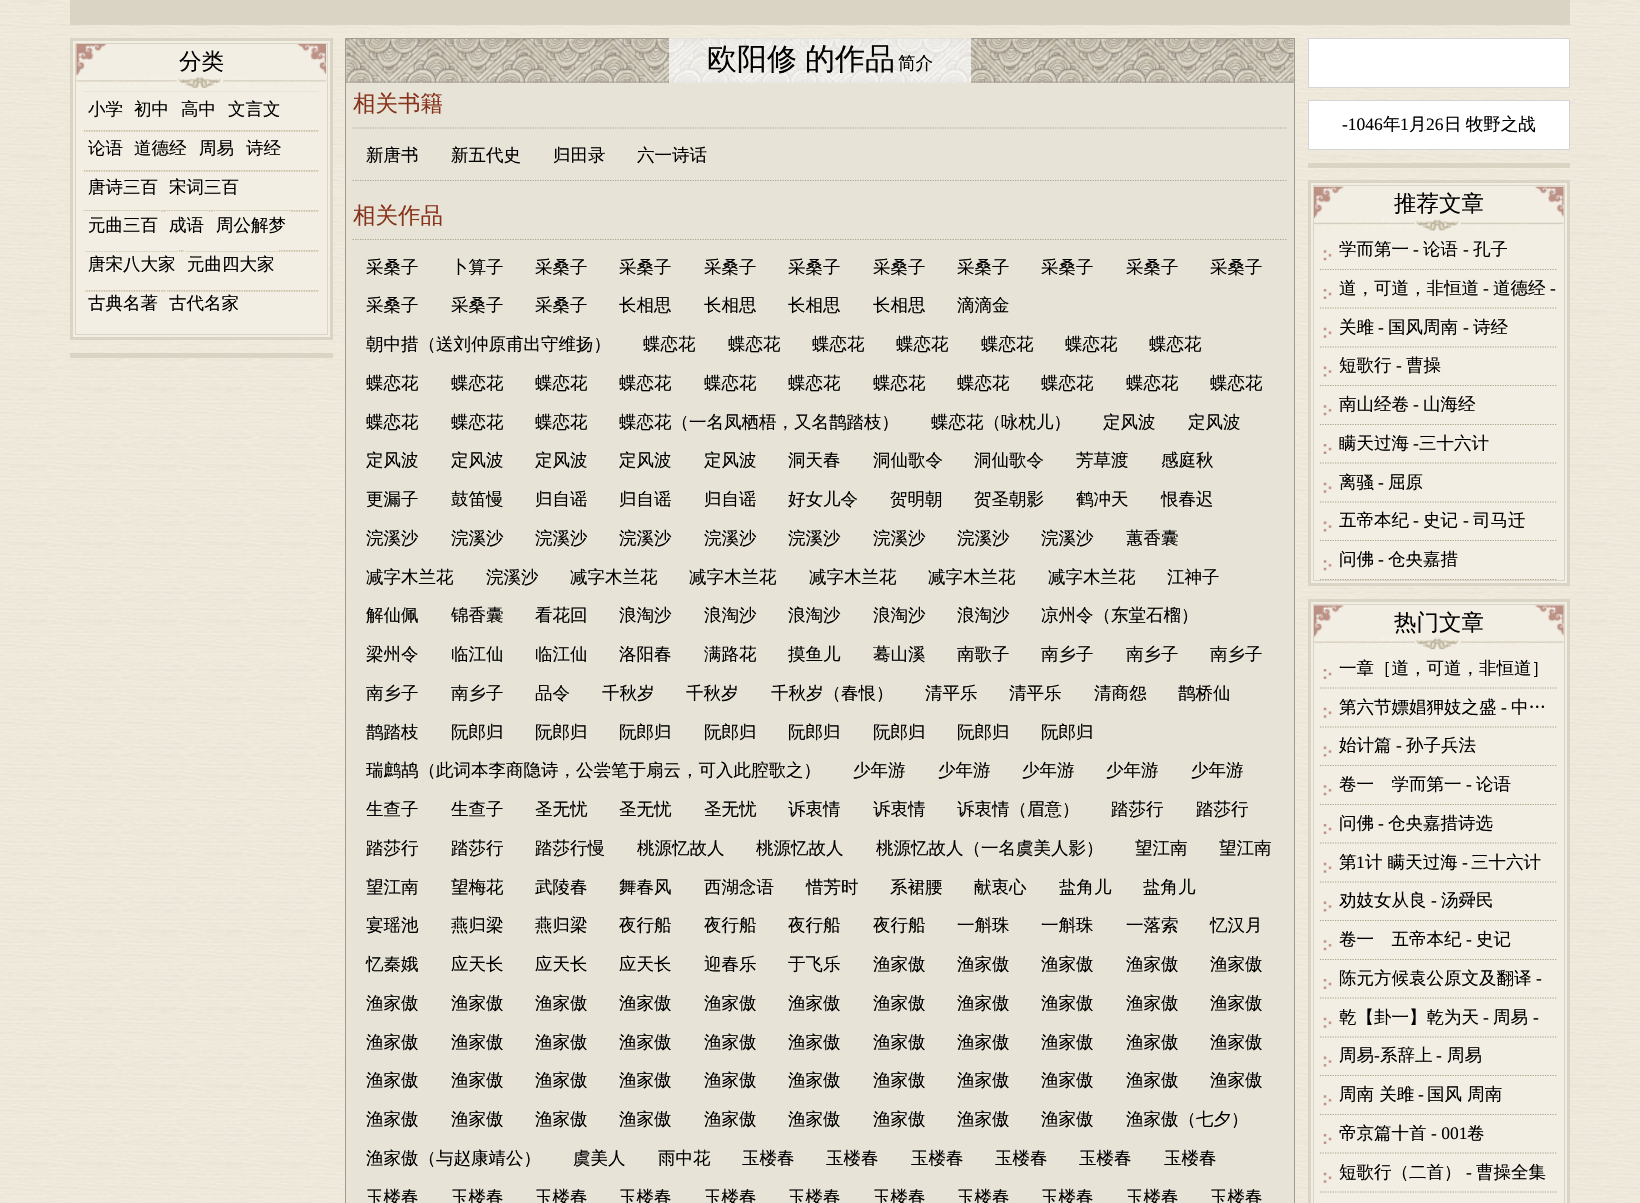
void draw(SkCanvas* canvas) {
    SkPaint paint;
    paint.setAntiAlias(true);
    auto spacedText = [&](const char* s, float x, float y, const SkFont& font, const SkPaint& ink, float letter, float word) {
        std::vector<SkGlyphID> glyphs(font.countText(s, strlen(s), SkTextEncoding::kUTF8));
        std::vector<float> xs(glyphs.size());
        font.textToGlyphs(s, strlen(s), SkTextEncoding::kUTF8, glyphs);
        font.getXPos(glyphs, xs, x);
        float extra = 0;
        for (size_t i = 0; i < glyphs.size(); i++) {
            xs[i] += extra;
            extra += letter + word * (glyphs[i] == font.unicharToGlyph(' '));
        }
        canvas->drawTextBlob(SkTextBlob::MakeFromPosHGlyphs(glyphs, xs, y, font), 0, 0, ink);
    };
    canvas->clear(0xFFFFFFFF);
    canvas->drawImageRect(SkImages::DeferredFromEncodedData(SkData::MakeFromFileName("img1.png")), SkRect::MakeXYWH(0, 0, 1640, 1203), SkSamplingOptions());
    paint.setColor(0xFFDAD4C4);
    canvas->drawRect(SkRect::MakeXYWH(70, 0, 1500, 25), paint);
    paint.setColor(0xFFF2EEE3);
    canvas->drawRect(SkRect::MakeXYWH(71.5f, 39.5f, 260, 299), paint);
    paint.setStyle(SkPaint::kStroke_Style);
    paint.setStrokeWidth(3);
    paint.setColor(0xFFDAD4C4);
    canvas->drawRect(SkRect::MakeXYWH(71.5f, 39.5f, 260, 299), paint);
    paint.setStrokeWidth(1);
    canvas->drawRect(SkRect::MakeXYWH(75.5f, 43.5f, 252, 291), paint);
    canvas->drawImageRect(SkImages::DeferredFromEncodedData(SkData::MakeFromFileName("img2.png")), SkRect::MakeXYWH(76, 76, 250, 12), SkSamplingOptions());
    canvas->drawImageRect(SkImages::DeferredFromEncodedData(SkData::MakeFromFileName("img3.png")), SkRect::MakeXYWH(76, 44, 31, 32), SkSamplingOptions());
    SkFont font1(fontMgr->matchFamilyStyle("WenQuanYi Zen Hei", SkFontStyle(500, SkFontStyle::kNormal_Width, SkFontStyle::kUpright_Slant)), 22.5f);
    font1.setSubpixel(true);
    paint.setStyle(SkPaint::kFill_Style);
    paint.setColor(0xFF000000);
    canvas->drawString("分类", 179, 69, font1, paint);
    canvas->drawImageRect(SkImages::DeferredFromEncodedData(SkData::MakeFromFileName("img4.png")), SkRect::MakeXYWH(297, 44, 30, 30), SkSamplingOptions());
    canvas->drawImageRect(SkImages::DeferredFromEncodedData(SkData::MakeFromFileName("img5.png")), SkRect::MakeXYWH(83, 91, 236, 201), SkSamplingOptions());
    SkFont font2(fontMgr->matchFamilyStyle("WenQuanYi Zen Hei", SkFontStyle(500, SkFontStyle::kNormal_Width, SkFontStyle::kUpright_Slant)), 17.5f);
    font2.setSubpixel(true);
    canvas->drawString("小学", 88, 115, font2, paint);
    canvas->drawString("初中", 134, 115, font2, paint);
    canvas->drawString("高中", 181, 115, font2, paint);
    canvas->drawString("文言文", 228, 115, font2, paint);
    canvas->drawString("论语", 88, 154, font2, paint);
    canvas->drawString("道德经", 134, 154, font2, paint);
    canvas->drawString("周易", 199, 154, font2, paint);
    canvas->drawString("诗经", 246, 154, font2, paint);
    canvas->drawString("唐诗三百", 88, 193, font2, paint);
    canvas->drawString("宋词三百", 169, 193, font2, paint);
    paint.setStyle(SkPaint::kStroke_Style);
    paint.setColor(0xFFF2EEE3);
    canvas->drawRect(SkRect::MakeXYWH(84.5f, 211.5f, 76, 29), paint);
    paint.setStyle(SkPaint::kFill_Style);
    paint.setColor(0xFF000000);
    canvas->drawString("元曲三百", 88, 231, font2, paint);
    paint.setStyle(SkPaint::kStroke_Style);
    paint.setColor(0xFFF2EEE3);
    canvas->drawRect(SkRect::MakeXYWH(166.5f, 211.5f, 42, 29), paint);
    paint.setStyle(SkPaint::kFill_Style);
    paint.setColor(0xFF000000);
    canvas->drawString("成语", 169, 231, font2, paint);
    paint.setStyle(SkPaint::kStroke_Style);
    paint.setColor(0xFFF2EEE3);
    canvas->drawRect(SkRect::MakeXYWH(213.5f, 211.5f, 76, 29), paint);
    paint.setStyle(SkPaint::kFill_Style);
    paint.setColor(0xFF000000);
    canvas->drawString("周公解梦", 216, 231, font2, paint);
    paint.setStyle(SkPaint::kStroke_Style);
    paint.setColor(0xFFF2EEE3);
    canvas->drawRect(SkRect::MakeXYWH(84.5f, 250.5f, 94, 29), paint);
    paint.setStyle(SkPaint::kFill_Style);
    paint.setColor(0xFF000000);
    canvas->drawString("唐宋八大家", 88, 270, font2, paint);
    paint.setStyle(SkPaint::kStroke_Style);
    paint.setColor(0xFFF2EEE3);
    canvas->drawRect(SkRect::MakeXYWH(184.5f, 250.5f, 94, 29), paint);
    paint.setStyle(SkPaint::kFill_Style);
    paint.setColor(0xFF000000);
    canvas->drawString("元曲四大家", 187, 270, font2, paint);
    paint.setStyle(SkPaint::kStroke_Style);
    paint.setColor(0xFFF2EEE3);
    canvas->drawRect(SkRect::MakeXYWH(84.5f, 289.5f, 76, 29), paint);
    paint.setStyle(SkPaint::kFill_Style);
    paint.setColor(0xFF000000);
    canvas->drawString("古典名著", 88, 309, font2, paint);
    paint.setStyle(SkPaint::kStroke_Style);
    paint.setColor(0xFFF2EEE3);
    canvas->drawRect(SkRect::MakeXYWH(166.5f, 289.5f, 77, 29), paint);
    paint.setStyle(SkPaint::kFill_Style);
    paint.setColor(0xFF000000);
    canvas->drawString("古代名家", 169, 309, font2, paint);
    paint.setColor(0xFFDAD4C4);
    canvas->drawRect(SkRect::MakeXYWH(70, 353, 263, 5), paint);
    paint.setColor(0xFFE7E3D7);
    canvas->drawRect(SkRect::MakeXYWH(345.5f, 38.5f, 949, 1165), paint);
    paint.setStyle(SkPaint::kStroke_Style);
    paint.setColor(0xFFA19A90);
    canvas->drawRect(SkRect::MakeXYWH(345.5f, 38.5f, 949, 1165), paint);
    canvas->drawImageRect(SkImages::DeferredFromEncodedData(SkData::MakeFromFileName("img6.png")), SkRect::MakeXYWH(346, 39, 948, 44), SkSamplingOptions());
    paint.setStyle(SkPaint::kFill_Style);
    paint.setColor(0xB3FFFFFF);
    canvas->drawRect(SkRect::MakeXYWH(669, 38, 302, 45), paint);
    SkFont font3(fontMgr->matchFamilyStyle("WenQuanYi Zen Hei", SkFontStyle(500, SkFontStyle::kNormal_Width, SkFontStyle::kUpright_Slant)), 30);
    font3.setSubpixel(true);
    paint.setColor(0xFF000000);
    spacedText("欧阳修 的作品", 707, 69, font3, paint, 0, -1);
    canvas->drawString("简介", 898, 69, font2, paint);
    paint.setStyle(SkPaint::kStroke_Style);
    paint.setStrokeWidth(1.2f);
    paint.setColor(0xFFAFA38B);
    paint.setPathEffect(SkDashPathEffect::Make({{1.25f, 1.25f}}, 0));
    canvas->drawPath(SkPathBuilder().moveTo(352.5f, 128).lineTo(1287.5f, 128).detach(), paint);
    paint.setPathEffect(nullptr);
    paint.setStyle(SkPaint::kFill_Style);
    paint.setColor(0xFF87331B);
    canvas->drawString("相关书籍", 353, 111, font1, paint);
    paint.setStyle(SkPaint::kStroke_Style);
    paint.setColor(0xFFAFA38B);
    paint.setPathEffect(SkDashPathEffect::Make({{1.25f, 1.25f}}, 0));
    canvas->drawPath(SkPathBuilder().moveTo(352.5f, 180.5f).lineTo(1287.5f, 180.5f).detach(), paint);
    paint.setPathEffect(nullptr);
    paint.setStyle(SkPaint::kFill_Style);
    paint.setColor(0xFF000000);
    canvas->drawString("新唐书", 366, 161, font2, paint);
    canvas->drawString("新五代史", 451, 161, font2, paint);
    canvas->drawString("归田录", 553, 161, font2, paint);
    canvas->drawString("六一诗话", 637, 161, font2, paint);
    paint.setStyle(SkPaint::kStroke_Style);
    paint.setColor(0xFFAFA38B);
    paint.setPathEffect(SkDashPathEffect::Make({{1.25f, 1.25f}}, 0));
    canvas->drawPath(SkPathBuilder().moveTo(352.5f, 239.5f).lineTo(1287.5f, 239.5f).detach(), paint);
    paint.setPathEffect(nullptr);
    paint.setStyle(SkPaint::kFill_Style);
    paint.setColor(0xFF87331B);
    canvas->drawString("相关作品", 353, 223, font1, paint);
    paint.setColor(0xFF000000);
    canvas->drawString("采桑子", 366, 273, font2, paint);
    canvas->drawString("卜算子", 451, 273, font2, paint);
    canvas->drawString("采桑子", 535, 273, font2, paint);
    canvas->drawString("采桑子", 619, 273, font2, paint);
    canvas->drawString("采桑子", 704, 273, font2, paint);
    canvas->drawString("采桑子", 788, 273, font2, paint);
    canvas->drawString("采桑子", 873, 273, font2, paint);
    canvas->drawString("采桑子", 957, 273, font2, paint);
    canvas->drawString("采桑子", 1041, 273, font2, paint);
    canvas->drawString("采桑子", 1126, 273, font2, paint);
    canvas->drawString("采桑子", 1210, 273, font2, paint);
    canvas->drawString("采桑子", 366, 311, font2, paint);
    canvas->drawString("采桑子", 451, 311, font2, paint);
    canvas->drawString("采桑子", 535, 311, font2, paint);
    canvas->drawString("长相思", 619, 311, font2, paint);
    canvas->drawString("长相思", 704, 311, font2, paint);
    canvas->drawString("长相思", 788, 311, font2, paint);
    canvas->drawString("长相思", 873, 311, font2, paint);
    canvas->drawString("滴滴金", 957, 311, font2, paint);
    canvas->drawString("朝中措（送刘仲原甫出守维扬）", 366, 350, font2, paint);
    canvas->drawString("蝶恋花", 643, 350, font2, paint);
    canvas->drawString("蝶恋花", 728, 350, font2, paint);
    canvas->drawString("蝶恋花", 812, 350, font2, paint);
    canvas->drawString("蝶恋花", 896, 350, font2, paint);
    canvas->drawString("蝶恋花", 981, 350, font2, paint);
    canvas->drawString("蝶恋花", 1065, 350, font2, paint);
    canvas->drawString("蝶恋花", 1149, 350, font2, paint);
    canvas->drawString("蝶恋花", 366, 389, font2, paint);
    canvas->drawString("蝶恋花", 451, 389, font2, paint);
    canvas->drawString("蝶恋花", 535, 389, font2, paint);
    canvas->drawString("蝶恋花", 619, 389, font2, paint);
    canvas->drawString("蝶恋花", 704, 389, font2, paint);
    canvas->drawString("蝶恋花", 788, 389, font2, paint);
    canvas->drawString("蝶恋花", 873, 389, font2, paint);
    canvas->drawString("蝶恋花", 957, 389, font2, paint);
    canvas->drawString("蝶恋花", 1041, 389, font2, paint);
    canvas->drawString("蝶恋花", 1126, 389, font2, paint);
    canvas->drawString("蝶恋花", 1210, 389, font2, paint);
    canvas->drawString("蝶恋花", 366, 428, font2, paint);
    canvas->drawString("蝶恋花", 451, 428, font2, paint);
    canvas->drawString("蝶恋花", 535, 428, font2, paint);
    canvas->drawString("蝶恋花（一名凤栖梧，又名鹊踏枝）", 619, 428, font2, paint);
    canvas->drawString("蝶恋花（咏枕儿）", 931, 428, font2, paint);
    canvas->drawString("定风波", 1103, 428, font2, paint);
    canvas->drawString("定风波", 1188, 428, font2, paint);
    canvas->drawString("定风波", 366, 466, font2, paint);
    canvas->drawString("定风波", 451, 466, font2, paint);
    canvas->drawString("定风波", 535, 466, font2, paint);
    canvas->drawString("定风波", 619, 466, font2, paint);
    canvas->drawString("定风波", 704, 466, font2, paint);
    canvas->drawString("洞天春", 788, 466, font2, paint);
    canvas->drawString("洞仙歌令", 873, 466, font2, paint);
    canvas->drawString("洞仙歌令", 974, 466, font2, paint);
    canvas->drawString("芳草渡", 1076, 466, font2, paint);
    canvas->drawString("感庭秋", 1161, 466, font2, paint);
    canvas->drawString("更漏子", 366, 505, font2, paint);
    canvas->drawString("鼓笛慢", 451, 505, font2, paint);
    canvas->drawString("归自谣", 535, 505, font2, paint);
    canvas->drawString("归自谣", 619, 505, font2, paint);
    canvas->drawString("归自谣", 704, 505, font2, paint);
    canvas->drawString("好女儿令", 788, 505, font2, paint);
    canvas->drawString("贺明朝", 890, 505, font2, paint);
    canvas->drawString("贺圣朝影", 974, 505, font2, paint);
    canvas->drawString("鹤冲天", 1076, 505, font2, paint);
    canvas->drawString("恨春迟", 1161, 505, font2, paint);
    canvas->drawString("浣溪沙", 366, 544, font2, paint);
    canvas->drawString("浣溪沙", 451, 544, font2, paint);
    canvas->drawString("浣溪沙", 535, 544, font2, paint);
    canvas->drawString("浣溪沙", 619, 544, font2, paint);
    canvas->drawString("浣溪沙", 704, 544, font2, paint);
    canvas->drawString("浣溪沙", 788, 544, font2, paint);
    canvas->drawString("浣溪沙", 873, 544, font2, paint);
    canvas->drawString("浣溪沙", 957, 544, font2, paint);
    canvas->drawString("浣溪沙", 1041, 544, font2, paint);
    canvas->drawString("蕙香囊", 1126, 544, font2, paint);
    canvas->drawString("减字木兰花", 366, 583, font2, paint);
    canvas->drawString("浣溪沙", 486, 583, font2, paint);
    canvas->drawString("减字木兰花", 570, 583, font2, paint);
    canvas->drawString("减字木兰花", 689, 583, font2, paint);
    canvas->drawString("减字木兰花", 809, 583, font2, paint);
    canvas->drawString("减字木兰花", 928, 583, font2, paint);
    canvas->drawString("减字木兰花", 1048, 583, font2, paint);
    canvas->drawString("江神子", 1167, 583, font2, paint);
    canvas->drawString("解仙佩", 366, 621, font2, paint);
    canvas->drawString("锦香囊", 451, 621, font2, paint);
    canvas->drawString("看花回", 535, 621, font2, paint);
    canvas->drawString("浪淘沙", 619, 621, font2, paint);
    canvas->drawString("浪淘沙", 704, 621, font2, paint);
    canvas->drawString("浪淘沙", 788, 621, font2, paint);
    canvas->drawString("浪淘沙", 873, 621, font2, paint);
    canvas->drawString("浪淘沙", 957, 621, font2, paint);
    canvas->drawString("凉州令（东堂石榴）", 1041, 621, font2, paint);
    canvas->drawString("梁州令", 366, 660, font2, paint);
    canvas->drawString("临江仙", 451, 660, font2, paint);
    canvas->drawString("临江仙", 535, 660, font2, paint);
    canvas->drawString("洛阳春", 619, 660, font2, paint);
    canvas->drawString("满路花", 704, 660, font2, paint);
    canvas->drawString("摸鱼儿", 788, 660, font2, paint);
    canvas->drawString("蓦山溪", 873, 660, font2, paint);
    canvas->drawString("南歌子", 957, 660, font2, paint);
    canvas->drawString("南乡子", 1041, 660, font2, paint);
    canvas->drawString("南乡子", 1126, 660, font2, paint);
    canvas->drawString("南乡子", 1210, 660, font2, paint);
    canvas->drawString("南乡子", 366, 699, font2, paint);
    canvas->drawString("南乡子", 451, 699, font2, paint);
    canvas->drawString("品令", 535, 699, font2, paint);
    canvas->drawString("千秋岁", 602, 699, font2, paint);
    canvas->drawString("千秋岁", 686, 699, font2, paint);
    canvas->drawString("千秋岁（春恨）", 771, 699, font2, paint);
    canvas->drawString("清平乐", 925, 699, font2, paint);
    canvas->drawString("清平乐", 1009, 699, font2, paint);
    canvas->drawString("清商怨", 1094, 699, font2, paint);
    canvas->drawString("鹊桥仙", 1178, 699, font2, paint);
    canvas->drawString("鹊踏枝", 366, 738, font2, paint);
    canvas->drawString("阮郎归", 451, 738, font2, paint);
    canvas->drawString("阮郎归", 535, 738, font2, paint);
    canvas->drawString("阮郎归", 619, 738, font2, paint);
    canvas->drawString("阮郎归", 704, 738, font2, paint);
    canvas->drawString("阮郎归", 788, 738, font2, paint);
    canvas->drawString("阮郎归", 873, 738, font2, paint);
    canvas->drawString("阮郎归", 957, 738, font2, paint);
    canvas->drawString("阮郎归", 1041, 738, font2, paint);
    canvas->drawString("瑞鹧鸪（此词本李商隐诗，公尝笔于扇云，可入此腔歌之）", 366, 776, font2, paint);
    canvas->drawString("少年游", 853, 776, font2, paint);
    canvas->drawString("少年游", 938, 776, font2, paint);
    canvas->drawString("少年游", 1022, 776, font2, paint);
    canvas->drawString("少年游", 1106, 776, font2, paint);
    canvas->drawString("少年游", 1191, 776, font2, paint);
    canvas->drawString("生查子", 366, 815, font2, paint);
    canvas->drawString("生查子", 451, 815, font2, paint);
    canvas->drawString("圣无忧", 535, 815, font2, paint);
    canvas->drawString("圣无忧", 619, 815, font2, paint);
    canvas->drawString("圣无忧", 704, 815, font2, paint);
    canvas->drawString("诉衷情", 788, 815, font2, paint);
    canvas->drawString("诉衷情", 873, 815, font2, paint);
    canvas->drawString("诉衷情（眉意）", 957, 815, font2, paint);
    canvas->drawString("踏莎行", 1111, 815, font2, paint);
    canvas->drawString("踏莎行", 1196, 815, font2, paint);
    canvas->drawString("踏莎行", 366, 854, font2, paint);
    canvas->drawString("踏莎行", 451, 854, font2, paint);
    canvas->drawString("踏莎行慢", 535, 854, font2, paint);
    canvas->drawString("桃源忆故人", 637, 854, font2, paint);
    canvas->drawString("桃源忆故人", 756, 854, font2, paint);
    canvas->drawString("桃源忆故人（一名虞美人影）", 876, 854, font2, paint);
    canvas->drawString("望江南", 1135, 854, font2, paint);
    canvas->drawString("望江南", 1219, 854, font2, paint);
    canvas->drawString("望江南", 366, 893, font2, paint);
    canvas->drawString("望梅花", 451, 893, font2, paint);
    canvas->drawString("武陵春", 535, 893, font2, paint);
    canvas->drawString("舞春风", 619, 893, font2, paint);
    canvas->drawString("西湖念语", 704, 893, font2, paint);
    canvas->drawString("惜芳时", 806, 893, font2, paint);
    canvas->drawString("系裙腰", 890, 893, font2, paint);
    canvas->drawString("献衷心", 974, 893, font2, paint);
    canvas->drawString("盐角儿", 1059, 893, font2, paint);
    canvas->drawString("盐角儿", 1143, 893, font2, paint);
    canvas->drawString("宴瑶池", 366, 931, font2, paint);
    canvas->drawString("燕归梁", 451, 931, font2, paint);
    canvas->drawString("燕归梁", 535, 931, font2, paint);
    canvas->drawString("夜行船", 619, 931, font2, paint);
    canvas->drawString("夜行船", 704, 931, font2, paint);
    canvas->drawString("夜行船", 788, 931, font2, paint);
    canvas->drawString("夜行船", 873, 931, font2, paint);
    canvas->drawString("一斛珠", 957, 931, font2, paint);
    canvas->drawString("一斛珠", 1041, 931, font2, paint);
    canvas->drawString("一落索", 1126, 931, font2, paint);
    canvas->drawString("忆汉月", 1210, 931, font2, paint);
    canvas->drawString("忆秦娥", 366, 970, font2, paint);
    canvas->drawString("应天长", 451, 970, font2, paint);
    canvas->drawString("应天长", 535, 970, font2, paint);
    canvas->drawString("应天长", 619, 970, font2, paint);
    canvas->drawString("迎春乐", 704, 970, font2, paint);
    canvas->drawString("于飞乐", 788, 970, font2, paint);
    canvas->drawString("渔家傲", 873, 970, font2, paint);
    canvas->drawString("渔家傲", 957, 970, font2, paint);
    canvas->drawString("渔家傲", 1041, 970, font2, paint);
    canvas->drawString("渔家傲", 1126, 970, font2, paint);
    canvas->drawString("渔家傲", 1210, 970, font2, paint);
    canvas->drawString("渔家傲", 366, 1009, font2, paint);
    canvas->drawString("渔家傲", 451, 1009, font2, paint);
    canvas->drawString("渔家傲", 535, 1009, font2, paint);
    canvas->drawString("渔家傲", 619, 1009, font2, paint);
    canvas->drawString("渔家傲", 704, 1009, font2, paint);
    canvas->drawString("渔家傲", 788, 1009, font2, paint);
    canvas->drawString("渔家傲", 873, 1009, font2, paint);
    canvas->drawString("渔家傲", 957, 1009, font2, paint);
    canvas->drawString("渔家傲", 1041, 1009, font2, paint);
    canvas->drawString("渔家傲", 1126, 1009, font2, paint);
    canvas->drawString("渔家傲", 1210, 1009, font2, paint);
    canvas->drawString("渔家傲", 366, 1048, font2, paint);
    canvas->drawString("渔家傲", 451, 1048, font2, paint);
    canvas->drawString("渔家傲", 535, 1048, font2, paint);
    canvas->drawString("渔家傲", 619, 1048, font2, paint);
    canvas->drawString("渔家傲", 704, 1048, font2, paint);
    canvas->drawString("渔家傲", 788, 1048, font2, paint);
    canvas->drawString("渔家傲", 873, 1048, font2, paint);
    canvas->drawString("渔家傲", 957, 1048, font2, paint);
    canvas->drawString("渔家傲", 1041, 1048, font2, paint);
    canvas->drawString("渔家傲", 1126, 1048, font2, paint);
    canvas->drawString("渔家傲", 1210, 1048, font2, paint);
    canvas->drawString("渔家傲", 366, 1086, font2, paint);
    canvas->drawString("渔家傲", 451, 1086, font2, paint);
    canvas->drawString("渔家傲", 535, 1086, font2, paint);
    canvas->drawString("渔家傲", 619, 1086, font2, paint);
    canvas->drawString("渔家傲", 704, 1086, font2, paint);
    canvas->drawString("渔家傲", 788, 1086, font2, paint);
    canvas->drawString("渔家傲", 873, 1086, font2, paint);
    canvas->drawString("渔家傲", 957, 1086, font2, paint);
    canvas->drawString("渔家傲", 1041, 1086, font2, paint);
    canvas->drawString("渔家傲", 1126, 1086, font2, paint);
    canvas->drawString("渔家傲", 1210, 1086, font2, paint);
    canvas->drawString("渔家傲", 366, 1125, font2, paint);
    canvas->drawString("渔家傲", 451, 1125, font2, paint);
    canvas->drawString("渔家傲", 535, 1125, font2, paint);
    canvas->drawString("渔家傲", 619, 1125, font2, paint);
    canvas->drawString("渔家傲", 704, 1125, font2, paint);
    canvas->drawString("渔家傲", 788, 1125, font2, paint);
    canvas->drawString("渔家傲", 873, 1125, font2, paint);
    canvas->drawString("渔家傲", 957, 1125, font2, paint);
    canvas->drawString("渔家傲", 1041, 1125, font2, paint);
    canvas->drawString("渔家傲（七夕）", 1126, 1125, font2, paint);
    canvas->drawString("渔家傲（与赵康靖公）", 366, 1164, font2, paint);
    canvas->drawString("虞美人", 573, 1164, font2, paint);
    canvas->drawString("雨中花", 658, 1164, font2, paint);
    canvas->drawString("玉楼春", 742, 1164, font2, paint);
    canvas->drawString("玉楼春", 826, 1164, font2, paint);
    canvas->drawString("玉楼春", 911, 1164, font2, paint);
    canvas->drawString("玉楼春", 995, 1164, font2, paint);
    canvas->drawString("玉楼春", 1079, 1164, font2, paint);
    canvas->drawString("玉楼春", 1164, 1164, font2, paint);
    canvas->drawString("玉楼春", 366, 1203, font2, paint);
    canvas->drawString("玉楼春", 451, 1203, font2, paint);
    canvas->drawString("玉楼春", 535, 1203, font2, paint);
    canvas->drawString("玉楼春", 619, 1203, font2, paint);
    canvas->drawString("玉楼春", 704, 1203, font2, paint);
    canvas->drawString("玉楼春", 788, 1203, font2, paint);
    canvas->drawString("玉楼春", 873, 1203, font2, paint);
    canvas->drawString("玉楼春", 957, 1203, font2, paint);
    canvas->drawString("玉楼春", 1041, 1203, font2, paint);
    canvas->drawString("玉楼春", 1126, 1203, font2, paint);
    canvas->drawString("玉楼春", 1210, 1203, font2, paint);
    paint.setColor(0xFFFFFFFF);
    canvas->drawRect(SkRect::MakeXYWH(1308.5f, 38.5f, 261, 49), paint);
    paint.setStyle(SkPaint::kStroke_Style);
    paint.setStrokeWidth(1);
    paint.setColor(0xFFD4D4D6);
    canvas->drawRect(SkRect::MakeXYWH(1308.5f, 38.5f, 261, 49), paint);
    paint.setStyle(SkPaint::kFill_Style);
    paint.setColor(0xFFFFFFFF);
    canvas->drawRect(SkRect::MakeXYWH(1308.5f, 100.5f, 261, 49), paint);
    paint.setStyle(SkPaint::kStroke_Style);
    paint.setColor(0xFFD4D4D6);
    canvas->drawRect(SkRect::MakeXYWH(1308.5f, 100.5f, 261, 49), paint);
    SkFont font4(fontMgr->matchFamilyStyle("Liberation Serif", SkFontStyle::Normal()), 17.5f);
    font4.setSubpixel(true);
    paint.setStyle(SkPaint::kFill_Style);
    paint.setColor(0xFF000000);
    canvas->drawString("-1046", 1342, 130, font4, paint);
    canvas->drawString("年", 1383, 130, font2, paint);
    canvas->drawString("1", 1400, 130, font4, paint);
    canvas->drawString("月", 1409, 130, font2, paint);
    canvas->drawString("26", 1426, 130, font4, paint);
    spacedText("日 牧野之战", 1444, 130, font2, paint, 0, -1);
    paint.setColor(0xFFDAD4C4);
    canvas->drawRect(SkRect::MakeXYWH(1308, 163, 262, 5), paint);
    paint.setColor(0xFFF2EEE3);
    canvas->drawRect(SkRect::MakeXYWH(1309.5f, 181.5f, 259, 403), paint);
    paint.setStyle(SkPaint::kStroke_Style);
    paint.setStrokeWidth(3);
    paint.setColor(0xFFDAD4C4);
    canvas->drawRect(SkRect::MakeXYWH(1309.5f, 181.5f, 259, 403), paint);
    paint.setStrokeWidth(1);
    canvas->drawRect(SkRect::MakeXYWH(1313.5f, 185.5f, 251, 395), paint);
    canvas->drawImageRect(SkImages::DeferredFromEncodedData(SkData::MakeFromFileName("img7.png")), SkRect::MakeXYWH(1314, 219, 250, 12), SkSamplingOptions());
    canvas->drawImageRect(SkImages::DeferredFromEncodedData(SkData::MakeFromFileName("img8.png")), SkRect::MakeXYWH(1313, 186, 31, 33), SkSamplingOptions());
    paint.setStyle(SkPaint::kFill_Style);
    paint.setColor(0xFF000000);
    canvas->drawString("推荐文章", 1394, 211, font1, paint);
    canvas->drawImageRect(SkImages::DeferredFromEncodedData(SkData::MakeFromFileName("img9.png")), SkRect::MakeXYWH(1534, 186, 30, 31), SkSamplingOptions());
    paint.setStyle(SkPaint::kStroke_Style);
    paint.setStrokeWidth(1.2f);
    paint.setColor(0xFFAFA38B);
    paint.setPathEffect(SkDashPathEffect::Make({{1.25f, 1.25f}}, 0));
    canvas->drawPath(SkPathBuilder().moveTo(1320, 269.5f).lineTo(1557.5f, 269.5f).detach(), paint);
    paint.setPathEffect(nullptr);
    canvas->drawImageRect(SkImages::DeferredFromEncodedData(SkData::MakeFromFileName("img10.png")), SkRect::MakeXYWH(1323, 250, 9, 11), SkSamplingOptions());
    paint.setStyle(SkPaint::kFill_Style);
    paint.setColor(0xFF000000);
    canvas->drawString("学而第一", 1339, 255, font2, paint);
    canvas->drawString("-", 1413, 255, font4, paint);
    canvas->drawString("论语", 1423, 255, font2, paint);
    canvas->drawString("-", 1463, 255, font4, paint);
    canvas->drawString("孔子", 1473, 255, font2, paint);
    paint.setStyle(SkPaint::kStroke_Style);
    paint.setColor(0xFFAFA38B);
    paint.setPathEffect(SkDashPathEffect::Make({{1.25f, 1.25f}}, 0));
    canvas->drawPath(SkPathBuilder().moveTo(1320, 308).lineTo(1557.5f, 308).detach(), paint);
    paint.setPathEffect(nullptr);
    canvas->drawImageRect(SkImages::DeferredFromEncodedData(SkData::MakeFromFileName("img11.png")), SkRect::MakeXYWH(1323, 289, 9, 10), SkSamplingOptions());
    paint.setStyle(SkPaint::kFill_Style);
    paint.setColor(0xFF000000);
    canvas->drawString("道，可道，非恒道", 1339, 294, font2, paint);
    canvas->drawString("-", 1483, 294, font4, paint);
    canvas->drawString("道德经", 1493, 294, font2, paint);
    canvas->drawString("-", 1550, 294, font4, paint);
    paint.setStyle(SkPaint::kStroke_Style);
    paint.setColor(0xFFAFA38B);
    paint.setPathEffect(SkDashPathEffect::Make({{1.25f, 1.25f}}, 0));
    canvas->drawPath(SkPathBuilder().moveTo(1320, 347).lineTo(1557.5f, 347).detach(), paint);
    paint.setPathEffect(nullptr);
    canvas->drawImageRect(SkImages::DeferredFromEncodedData(SkData::MakeFromFileName("img12.png")), SkRect::MakeXYWH(1323, 327, 9, 11), SkSamplingOptions());
    paint.setStyle(SkPaint::kFill_Style);
    paint.setColor(0xFF000000);
    canvas->drawString("关雎", 1339, 333, font2, paint);
    canvas->drawString("-", 1378, 333, font4, paint);
    canvas->drawString("国风周南", 1388, 333, font2, paint);
    canvas->drawString("-", 1463, 333, font4, paint);
    canvas->drawString("诗经", 1473, 333, font2, paint);
    paint.setStyle(SkPaint::kStroke_Style);
    paint.setColor(0xFFAFA38B);
    paint.setPathEffect(SkDashPathEffect::Make({{1.25f, 1.25f}}, 0));
    canvas->drawPath(SkPathBuilder().moveTo(1320, 385.5f).lineTo(1557.5f, 385.5f).detach(), paint);
    paint.setPathEffect(nullptr);
    canvas->drawImageRect(SkImages::DeferredFromEncodedData(SkData::MakeFromFileName("img13.png")), SkRect::MakeXYWH(1323, 366, 9, 11), SkSamplingOptions());
    paint.setStyle(SkPaint::kFill_Style);
    paint.setColor(0xFF000000);
    canvas->drawString("短歌行", 1339, 371, font2, paint);
    canvas->drawString("-", 1396, 371, font4, paint);
    canvas->drawString("曹操", 1406, 371, font2, paint);
    paint.setStyle(SkPaint::kStroke_Style);
    paint.setColor(0xFFAFA38B);
    paint.setPathEffect(SkDashPathEffect::Make({{1.25f, 1.25f}}, 0));
    canvas->drawPath(SkPathBuilder().moveTo(1320, 424.5f).lineTo(1557.5f, 424.5f).detach(), paint);
    paint.setPathEffect(nullptr);
    canvas->drawImageRect(SkImages::DeferredFromEncodedData(SkData::MakeFromFileName("img10.png")), SkRect::MakeXYWH(1323, 405, 9, 11), SkSamplingOptions());
    paint.setStyle(SkPaint::kFill_Style);
    paint.setColor(0xFF000000);
    canvas->drawString("南山经卷", 1339, 410, font2, paint);
    canvas->drawString("-", 1413, 410, font4, paint);
    canvas->drawString("山海经", 1423, 410, font2, paint);
    paint.setStyle(SkPaint::kStroke_Style);
    paint.setColor(0xFFAFA38B);
    paint.setPathEffect(SkDashPathEffect::Make({{1.25f, 1.25f}}, 0));
    canvas->drawPath(SkPathBuilder().moveTo(1320, 463).lineTo(1557.5f, 463).detach(), paint);
    paint.setPathEffect(nullptr);
    canvas->drawImageRect(SkImages::DeferredFromEncodedData(SkData::MakeFromFileName("img11.png")), SkRect::MakeXYWH(1323, 444, 9, 10), SkSamplingOptions());
    paint.setStyle(SkPaint::kFill_Style);
    paint.setColor(0xFF000000);
    canvas->drawString("瞒天过海", 1339, 449, font2, paint);
    canvas->drawString("-", 1413, 449, font4, paint);
    canvas->drawString("三十六计", 1419, 449, font2, paint);
    paint.setStyle(SkPaint::kStroke_Style);
    paint.setColor(0xFFAFA38B);
    paint.setPathEffect(SkDashPathEffect::Make({{1.25f, 1.25f}}, 0));
    canvas->drawPath(SkPathBuilder().moveTo(1320, 502).lineTo(1557.5f, 502).detach(), paint);
    paint.setPathEffect(nullptr);
    canvas->drawImageRect(SkImages::DeferredFromEncodedData(SkData::MakeFromFileName("img12.png")), SkRect::MakeXYWH(1323, 482, 9, 11), SkSamplingOptions());
    paint.setStyle(SkPaint::kFill_Style);
    paint.setColor(0xFF000000);
    canvas->drawString("离骚", 1339, 488, font2, paint);
    canvas->drawString("-", 1378, 488, font4, paint);
    canvas->drawString("屈原", 1388, 488, font2, paint);
    paint.setStyle(SkPaint::kStroke_Style);
    paint.setColor(0xFFAFA38B);
    paint.setPathEffect(SkDashPathEffect::Make({{1.25f, 1.25f}}, 0));
    canvas->drawPath(SkPathBuilder().moveTo(1320, 540.5f).lineTo(1557.5f, 540.5f).detach(), paint);
    paint.setPathEffect(nullptr);
    canvas->drawImageRect(SkImages::DeferredFromEncodedData(SkData::MakeFromFileName("img13.png")), SkRect::MakeXYWH(1323, 521, 9, 11), SkSamplingOptions());
    paint.setStyle(SkPaint::kFill_Style);
    paint.setColor(0xFF000000);
    canvas->drawString("五帝本纪", 1339, 526, font2, paint);
    canvas->drawString("-", 1413, 526, font4, paint);
    canvas->drawString("史记", 1423, 526, font2, paint);
    canvas->drawString("-", 1463, 526, font4, paint);
    canvas->drawString("司马迁", 1473, 526, font2, paint);
    canvas->save();
    canvas->clipRect(SkRect::MakeXYWH(1314, 231, 250, 349));
    paint.setStyle(SkPaint::kStroke_Style);
    paint.setColor(0xFFAFA38B);
    paint.setPathEffect(SkDashPathEffect::Make({{1.25f, 1.25f}}, 0));
    canvas->drawPath(SkPathBuilder().moveTo(1320, 579.5f).lineTo(1557.5f, 579.5f).detach(), paint);
    paint.setPathEffect(nullptr);
    canvas->restore();
    canvas->drawImageRect(SkImages::DeferredFromEncodedData(SkData::MakeFromFileName("img10.png")), SkRect::MakeXYWH(1323, 560, 9, 11), SkSamplingOptions());
    paint.setStyle(SkPaint::kFill_Style);
    paint.setColor(0xFF000000);
    canvas->drawString("问佛", 1339, 565, font2, paint);
    canvas->drawString("-", 1378, 565, font4, paint);
    canvas->drawString("仓央嘉措", 1388, 565, font2, paint);
    paint.setColor(0xFFF2EEE3);
    canvas->drawRect(SkRect::MakeXYWH(1309.5f, 600.5f, 259, 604), paint);
    paint.setStyle(SkPaint::kStroke_Style);
    paint.setStrokeWidth(3);
    paint.setColor(0xFFDAD4C4);
    canvas->drawRect(SkRect::MakeXYWH(1309.5f, 600.5f, 259, 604), paint);
    paint.setStrokeWidth(1);
    canvas->drawRect(SkRect::MakeXYWH(1313.5f, 604.5f, 251, 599), paint);
    canvas->drawImageRect(SkImages::DeferredFromEncodedData(SkData::MakeFromFileName("img14.png")), SkRect::MakeXYWH(1314, 637, 250, 13), SkSamplingOptions());
    canvas->drawImageRect(SkImages::DeferredFromEncodedData(SkData::MakeFromFileName("img15.png")), SkRect::MakeXYWH(1313, 605, 31, 33), SkSamplingOptions());
    paint.setStyle(SkPaint::kFill_Style);
    paint.setColor(0xFF000000);
    canvas->drawString("热门文章", 1394, 630, font1, paint);
    canvas->drawImageRect(SkImages::DeferredFromEncodedData(SkData::MakeFromFileName("img16.png")), SkRect::MakeXYWH(1535, 605, 29, 31), SkSamplingOptions());
    paint.setStyle(SkPaint::kStroke_Style);
    paint.setStrokeWidth(1.2f);
    paint.setColor(0xFFAFA38B);
    paint.setPathEffect(SkDashPathEffect::Make({{1.25f, 1.25f}}, 0));
    canvas->drawPath(SkPathBuilder().moveTo(1320, 688).lineTo(1557.5f, 688).detach(), paint);
    paint.setPathEffect(nullptr);
    canvas->drawImageRect(SkImages::DeferredFromEncodedData(SkData::MakeFromFileName("img11.png")), SkRect::MakeXYWH(1323, 669, 9, 10), SkSamplingOptions());
    paint.setStyle(SkPaint::kFill_Style);
    paint.setColor(0xFF000000);
    canvas->drawString("一章［道，可道，非恒道］", 1339, 674, font2, paint);
    paint.setStyle(SkPaint::kStroke_Style);
    paint.setColor(0xFFAFA38B);
    paint.setPathEffect(SkDashPathEffect::Make({{1.25f, 1.25f}}, 0));
    canvas->drawPath(SkPathBuilder().moveTo(1320, 727).lineTo(1557.5f, 727).detach(), paint);
    paint.setPathEffect(nullptr);
    canvas->drawImageRect(SkImages::DeferredFromEncodedData(SkData::MakeFromFileName("img12.png")), SkRect::MakeXYWH(1323, 707, 9, 11), SkSamplingOptions());
    paint.setStyle(SkPaint::kFill_Style);
    paint.setColor(0xFF000000);
    canvas->drawString("第六节嫖娼狎妓之盛", 1339, 713, font2, paint);
    canvas->drawString("-", 1501, 713, font4, paint);
    canvas->drawString("中…", 1511, 713, font2, paint);
    paint.setStyle(SkPaint::kStroke_Style);
    paint.setColor(0xFFAFA38B);
    paint.setPathEffect(SkDashPathEffect::Make({{1.25f, 1.25f}}, 0));
    canvas->drawPath(SkPathBuilder().moveTo(1320, 765.5f).lineTo(1557.5f, 765.5f).detach(), paint);
    paint.setPathEffect(nullptr);
    canvas->drawImageRect(SkImages::DeferredFromEncodedData(SkData::MakeFromFileName("img13.png")), SkRect::MakeXYWH(1323, 746, 9, 11), SkSamplingOptions());
    paint.setStyle(SkPaint::kFill_Style);
    paint.setColor(0xFF000000);
    canvas->drawString("始计篇", 1339, 751, font2, paint);
    canvas->drawString("-", 1396, 751, font4, paint);
    canvas->drawString("孙子兵法", 1406, 751, font2, paint);
    paint.setStyle(SkPaint::kStroke_Style);
    paint.setColor(0xFFAFA38B);
    paint.setPathEffect(SkDashPathEffect::Make({{1.25f, 1.25f}}, 0));
    canvas->drawPath(SkPathBuilder().moveTo(1320, 804.5f).lineTo(1557.5f, 804.5f).detach(), paint);
    paint.setPathEffect(nullptr);
    canvas->drawImageRect(SkImages::DeferredFromEncodedData(SkData::MakeFromFileName("img10.png")), SkRect::MakeXYWH(1323, 785, 9, 11), SkSamplingOptions());
    paint.setStyle(SkPaint::kFill_Style);
    paint.setColor(0xFF000000);
    canvas->drawString("卷一　学而第一", 1339, 790, font2, paint);
    canvas->drawString("-", 1466, 790, font4, paint);
    canvas->drawString("论语", 1476, 790, font2, paint);
    paint.setStyle(SkPaint::kStroke_Style);
    paint.setColor(0xFFAFA38B);
    paint.setPathEffect(SkDashPathEffect::Make({{1.25f, 1.25f}}, 0));
    canvas->drawPath(SkPathBuilder().moveTo(1320, 843).lineTo(1557.5f, 843).detach(), paint);
    paint.setPathEffect(nullptr);
    canvas->drawImageRect(SkImages::DeferredFromEncodedData(SkData::MakeFromFileName("img11.png")), SkRect::MakeXYWH(1323, 824, 9, 10), SkSamplingOptions());
    paint.setStyle(SkPaint::kFill_Style);
    paint.setColor(0xFF000000);
    canvas->drawString("问佛", 1339, 829, font2, paint);
    canvas->drawString("-", 1378, 829, font4, paint);
    canvas->drawString("仓央嘉措诗选", 1388, 829, font2, paint);
    paint.setStyle(SkPaint::kStroke_Style);
    paint.setColor(0xFFAFA38B);
    paint.setPathEffect(SkDashPathEffect::Make({{1.25f, 1.25f}}, 0));
    canvas->drawPath(SkPathBuilder().moveTo(1320, 882).lineTo(1557.5f, 882).detach(), paint);
    paint.setPathEffect(nullptr);
    canvas->drawImageRect(SkImages::DeferredFromEncodedData(SkData::MakeFromFileName("img12.png")), SkRect::MakeXYWH(1323, 862, 9, 11), SkSamplingOptions());
    paint.setStyle(SkPaint::kFill_Style);
    paint.setColor(0xFF000000);
    canvas->drawString("第", 1339, 868, font2, paint);
    canvas->drawString("1", 1356, 868, font4, paint);
    canvas->drawString("计 瞒天过海", 1365, 868, font2, paint);
    canvas->drawString("-", 1462, 868, font4, paint);
    canvas->drawString("三十六计", 1471, 868, font2, paint);
    paint.setStyle(SkPaint::kStroke_Style);
    paint.setColor(0xFFAFA38B);
    paint.setPathEffect(SkDashPathEffect::Make({{1.25f, 1.25f}}, 0));
    canvas->drawPath(SkPathBuilder().moveTo(1320, 920.5f).lineTo(1557.5f, 920.5f).detach(), paint);
    paint.setPathEffect(nullptr);
    canvas->drawImageRect(SkImages::DeferredFromEncodedData(SkData::MakeFromFileName("img13.png")), SkRect::MakeXYWH(1323, 901, 9, 11), SkSamplingOptions());
    paint.setStyle(SkPaint::kFill_Style);
    paint.setColor(0xFF000000);
    canvas->drawString("劝妓女从良", 1339, 906, font2, paint);
    canvas->drawString("-", 1431, 906, font4, paint);
    canvas->drawString("汤舜民", 1441, 906, font2, paint);
    paint.setStyle(SkPaint::kStroke_Style);
    paint.setColor(0xFFAFA38B);
    paint.setPathEffect(SkDashPathEffect::Make({{1.25f, 1.25f}}, 0));
    canvas->drawPath(SkPathBuilder().moveTo(1320, 959.5f).lineTo(1557.5f, 959.5f).detach(), paint);
    paint.setPathEffect(nullptr);
    canvas->drawImageRect(SkImages::DeferredFromEncodedData(SkData::MakeFromFileName("img10.png")), SkRect::MakeXYWH(1323, 940, 9, 11), SkSamplingOptions());
    paint.setStyle(SkPaint::kFill_Style);
    paint.setColor(0xFF000000);
    canvas->drawString("卷一　五帝本纪", 1339, 945, font2, paint);
    canvas->drawString("-", 1466, 945, font4, paint);
    canvas->drawString("史记", 1476, 945, font2, paint);
    paint.setStyle(SkPaint::kStroke_Style);
    paint.setColor(0xFFAFA38B);
    paint.setPathEffect(SkDashPathEffect::Make({{1.25f, 1.25f}}, 0));
    canvas->drawPath(SkPathBuilder().moveTo(1320, 998).lineTo(1557.5f, 998).detach(), paint);
    paint.setPathEffect(nullptr);
    canvas->drawImageRect(SkImages::DeferredFromEncodedData(SkData::MakeFromFileName("img11.png")), SkRect::MakeXYWH(1323, 979, 9, 10), SkSamplingOptions());
    paint.setStyle(SkPaint::kFill_Style);
    paint.setColor(0xFF000000);
    canvas->drawString("陈元方候袁公原文及翻译", 1339, 984, font2, paint);
    canvas->drawString("-", 1536, 984, font4, paint);
    paint.setStyle(SkPaint::kStroke_Style);
    paint.setColor(0xFFAFA38B);
    paint.setPathEffect(SkDashPathEffect::Make({{1.25f, 1.25f}}, 0));
    canvas->drawPath(SkPathBuilder().moveTo(1320, 1037).lineTo(1557.5f, 1037).detach(), paint);
    paint.setPathEffect(nullptr);
    canvas->drawImageRect(SkImages::DeferredFromEncodedData(SkData::MakeFromFileName("img12.png")), SkRect::MakeXYWH(1323, 1017, 9, 11), SkSamplingOptions());
    paint.setStyle(SkPaint::kFill_Style);
    paint.setColor(0xFF000000);
    canvas->drawString("乾【卦一】乾为天", 1339, 1023, font2, paint);
    canvas->drawString("-", 1483, 1023, font4, paint);
    canvas->drawString("周易", 1493, 1023, font2, paint);
    canvas->drawString("-", 1533, 1023, font4, paint);
    paint.setStyle(SkPaint::kStroke_Style);
    paint.setColor(0xFFAFA38B);
    paint.setPathEffect(SkDashPathEffect::Make({{1.25f, 1.25f}}, 0));
    canvas->drawPath(SkPathBuilder().moveTo(1320, 1075.5f).lineTo(1557.5f, 1075.5f).detach(), paint);
    paint.setPathEffect(nullptr);
    canvas->drawImageRect(SkImages::DeferredFromEncodedData(SkData::MakeFromFileName("img13.png")), SkRect::MakeXYWH(1323, 1056, 9, 11), SkSamplingOptions());
    paint.setStyle(SkPaint::kFill_Style);
    paint.setColor(0xFF000000);
    canvas->drawString("周易", 1339, 1061, font2, paint);
    canvas->drawString("-", 1374, 1061, font4, paint);
    canvas->drawString("系辞上", 1380, 1061, font2, paint);
    canvas->drawString("-", 1436, 1061, font4, paint);
    canvas->drawString("周易", 1447, 1061, font2, paint);
    paint.setStyle(SkPaint::kStroke_Style);
    paint.setColor(0xFFAFA38B);
    paint.setPathEffect(SkDashPathEffect::Make({{1.25f, 1.25f}}, 0));
    canvas->drawPath(SkPathBuilder().moveTo(1320, 1114.5f).lineTo(1557.5f, 1114.5f).detach(), paint);
    paint.setPathEffect(nullptr);
    canvas->drawImageRect(SkImages::DeferredFromEncodedData(SkData::MakeFromFileName("img10.png")), SkRect::MakeXYWH(1323, 1095, 9, 11), SkSamplingOptions());
    paint.setStyle(SkPaint::kFill_Style);
    paint.setColor(0xFF000000);
    canvas->drawString("周南 关雎", 1339, 1100, font2, paint);
    canvas->drawString("-", 1418, 1100, font4, paint);
    canvas->drawString("国风 周南", 1427, 1100, font2, paint);
    paint.setStyle(SkPaint::kStroke_Style);
    paint.setColor(0xFFAFA38B);
    paint.setPathEffect(SkDashPathEffect::Make({{1.25f, 1.25f}}, 0));
    canvas->drawPath(SkPathBuilder().moveTo(1320, 1153).lineTo(1557.5f, 1153).detach(), paint);
    paint.setPathEffect(nullptr);
    canvas->drawImageRect(SkImages::DeferredFromEncodedData(SkData::MakeFromFileName("img11.png")), SkRect::MakeXYWH(1323, 1134, 9, 10), SkSamplingOptions());
    paint.setStyle(SkPaint::kFill_Style);
    paint.setColor(0xFF000000);
    canvas->drawString("帝京篇十首", 1339, 1139, font2, paint);
    canvas->drawString("- 001", 1431, 1139, font4, paint);
    canvas->drawString("卷", 1467, 1139, font2, paint);
    paint.setStyle(SkPaint::kStroke_Style);
    paint.setColor(0xFFAFA38B);
    paint.setPathEffect(SkDashPathEffect::Make({{1.25f, 1.25f}}, 0));
    canvas->drawPath(SkPathBuilder().moveTo(1320, 1192).lineTo(1557.5f, 1192).detach(), paint);
    paint.setPathEffect(nullptr);
    canvas->drawImageRect(SkImages::DeferredFromEncodedData(SkData::MakeFromFileName("img12.png")), SkRect::MakeXYWH(1323, 1172, 9, 11), SkSamplingOptions());
    paint.setStyle(SkPaint::kFill_Style);
    paint.setColor(0xFF000000);
    canvas->drawString("短歌行（二首）", 1339, 1178, font2, paint);
    canvas->drawString("-", 1466, 1178, font4, paint);
    canvas->drawString("曹操全集", 1476, 1178, font2, paint);
}
